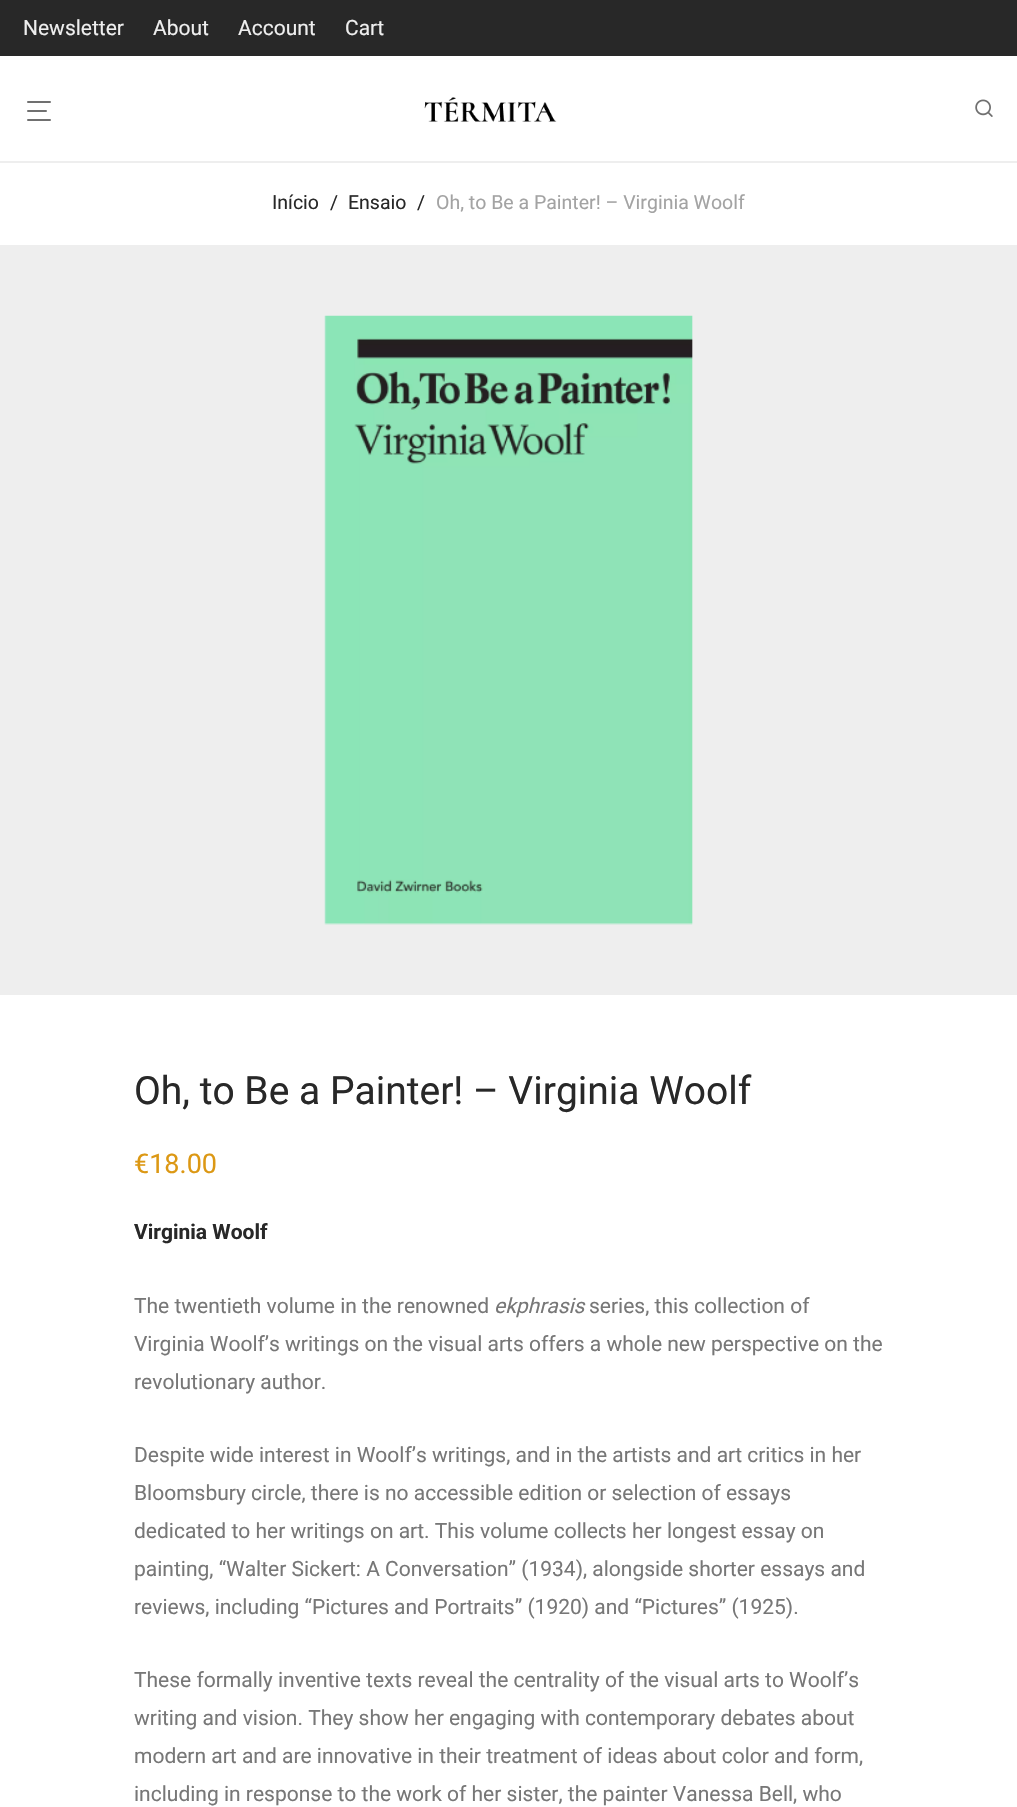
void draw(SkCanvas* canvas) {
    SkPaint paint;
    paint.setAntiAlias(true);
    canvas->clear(0xFFFFFFFF);
    paint.setColor(0xFF282828);
    canvas->drawRect(SkRect::MakeXYWH(0, 0, 1017, 56), paint);
    SkFont font1(fontMgr->matchFamilyStyle("Roboto", SkFontStyle::Normal()), 21);
    font1.setSubpixel(true);
    paint.setColor(0xFFEEEEEE);
    canvas->drawString("Newsletter", 23, 35, font1, paint);
    canvas->drawString("About", 153, 35, font1, paint);
    canvas->drawString("Account", 238, 35, font1, paint);
    canvas->drawString("Cart", 345, 35, font1, paint);
    canvas->drawRect(SkRect::MakeXYWH(0, 161, 1017, 2), paint);
    paint.setColor(0xFF707070);
    canvas->drawRoundRect(SkRect::MakeXYWH(27, 101, 24, 2), 1, 1, paint);
    canvas->drawRoundRect(SkRect::MakeXYWH(27, 110, 20, 2), 1, 1, paint);
    canvas->drawRoundRect(SkRect::MakeXYWH(27, 119, 24, 2), 1, 1, paint);
    canvas->drawImageRect(SkImages::DeferredFromEncodedData(SkData::MakeFromFileName("img1.png")), SkRect::MakeXYWH(424, 97, 133, 25), SkSamplingOptions());
    canvas->drawImageRect(SkImages::DeferredFromEncodedData(SkData::MakeFromFileName("img2.png")), SkRect::MakeXYWH(975, 99, 18, 18), SkSamplingOptions());
    SkFont font2(fontMgr->matchFamilyStyle("Roboto", SkFontStyle::Normal()), 19.5f);
    font2.setSubpixel(true);
    paint.setColor(0xFF282828);
    canvas->drawString("Início", 272, 209, font2, paint);
    canvas->drawString("/", 330, 209, font2, paint);
    canvas->drawString("Ensaio", 348, 209, font2, paint);
    canvas->drawString("/", 417, 209, font2, paint);
    paint.setColor(0xFFA3A3A3);
    canvas->drawString("Oh, to Be a Painter! – Virginia Woolf", 436, 209, font2, paint);
    paint.setColor(0xFFEEEEEE);
    canvas->drawRect(SkRect::MakeXYWH(0, 245, 1017, 750), paint);
    canvas->drawImageRect(SkImages::DeferredFromEncodedData(SkData::MakeFromFileName("img3.png")), SkRect::MakeXYWH(324, 315, 369, 610), SkSamplingOptions());
    SkFont font3(fontMgr->matchFamilyStyle("Roboto", SkFontStyle::Normal()), 39);
    font3.setSubpixel(true);
    paint.setColor(0xFF282828);
    canvas->drawString("Oh, to Be a Painter! – Virginia Woolf", 134, 1104, font3, paint);
    SkFont font4(fontMgr->matchFamilyStyle("Roboto", SkFontStyle::Normal()), 27);
    font4.setSubpixel(true);
    paint.setColor(0xFFDC9814);
    canvas->drawString("€18.00", 134, 1173, font4, paint);
    SkFont font5(fontMgr->matchFamilyStyle("Roboto", SkFontStyle::Bold()), 21);
    font5.setSubpixel(true);
    paint.setColor(0xFF282828);
    canvas->drawString("Virginia Woolf", 134, 1239, font5, paint);
    paint.setColor(0xFF777777);
    canvas->drawString("The twentieth volume in the renowned", 134, 1313, font1, paint);
    SkFont font6(fontMgr->matchFamilyStyle("Roboto", SkFontStyle::Italic()), 21);
    font6.setSubpixel(true);
    canvas->drawString("ekphrasis", 494, 1313, font6, paint);
    canvas->drawString("series, this collection of", 589, 1313, font1, paint);
    canvas->drawString("Virginia Woolf’s writings on the visual arts offers a whole new perspective on the", 134, 1351, font1, paint);
    canvas->drawString("revolutionary author.", 134, 1389, font1, paint);
    canvas->drawString("Despite wide interest in Woolf’s writings, and in the artists and art critics in her", 134, 1462, font1, paint);
    canvas->drawString("Bloomsbury circle, there is no accessible edition or selection of essays", 134, 1500, font1, paint);
    canvas->drawString("dedicated to her writings on art. This volume collects her longest essay on", 134, 1538, font1, paint);
    canvas->drawString("painting, “Walter Sickert: A Conversation” (1934), alongside shorter essays and", 134, 1576, font1, paint);
    canvas->drawString("reviews, including “Pictures and Portraits” (1920) and “Pictures” (1925).", 134, 1614, font1, paint);
    canvas->drawString("These formally inventive texts reveal the centrality of the visual arts to Woolf’s", 134, 1687, font1, paint);
    canvas->drawString("writing and vision. They show her engaging with contemporary debates about", 134, 1725, font1, paint);
    canvas->drawString("modern art and are innovative in their treatment of ideas about color and form,", 134, 1763, font1, paint);
    canvas->drawString("including in response to the work of her sister, the painter Vanessa Bell, who", 134, 1801, font1, paint);
}
